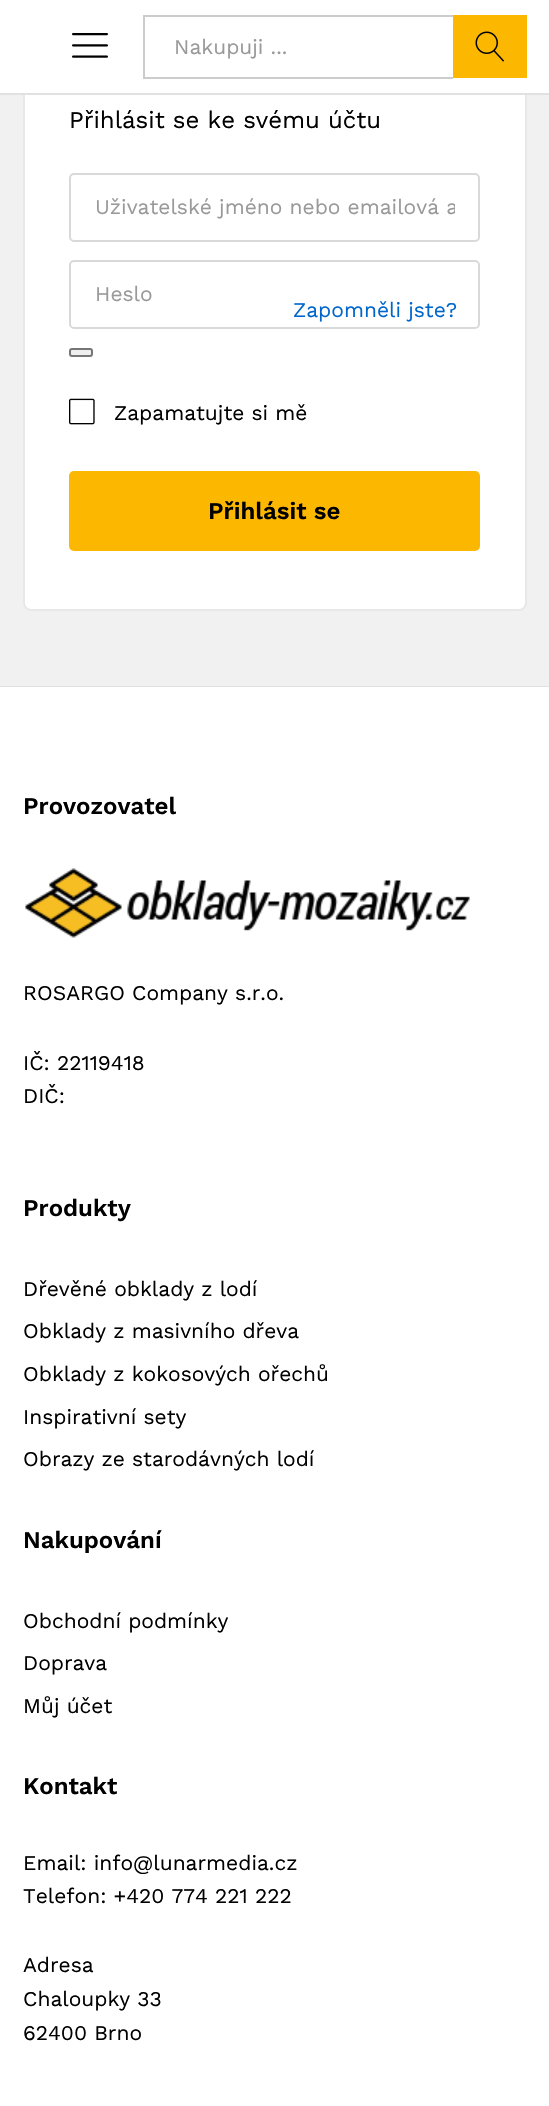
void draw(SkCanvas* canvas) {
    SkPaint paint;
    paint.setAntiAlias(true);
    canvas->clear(0xFFF1F1F1);
    paint.setColor(0xFFFFFFFF);
    canvas->drawRoundRect(SkRect::MakeXYWH(24, 52, 502, 558), 7, 7, paint);
    paint.setStyle(SkPaint::kStroke_Style);
    paint.setStrokeWidth(2);
    paint.setColor(0xFFE8E8E8);
    canvas->drawRoundRect(SkRect::MakeXYWH(24, 52, 502, 558), 7, 7, paint);
    paint.setStyle(SkPaint::kFill_Style);
    paint.setColor(0xFFFFFFFF);
    canvas->drawRect(SkRect::MakeXYWH(0, 0, 549, 93), paint);
    paint.setColor(0xFFE1E1E1);
    canvas->drawRect(SkRect::MakeXYWH(0, 93, 549, 2), paint);
    canvas->drawImageRect(SkImages::DeferredFromEncodedData(SkData::MakeFromFileName("img1.png")), SkRect::MakeXYWH(72, 33, 36, 25), SkSamplingOptions());
    paint.setColor(0xFFCCCCCC);
    canvas->drawRect(SkRect::MakeXYWH(143, 15, 310, 2), paint);
    canvas->drawRect(SkRect::MakeXYWH(143, 77, 310, 2), paint);
    canvas->drawRect(SkRect::MakeXYWH(143, 15, 2, 63), paint);
    SkFont font1(fontMgr->matchFamilyStyle("Work Sans", SkFontStyle::Normal()), 21);
    font1.setSubpixel(true);
    paint.setColor(0xFF999999);
    canvas->drawString("Nakupuji ...", 174, 54, font1, paint);
    paint.setColor(0xFFFCB800);
    canvas->drawRect(SkRect::MakeXYWH(453, 15, 74, 63), paint);
    canvas->drawImageRect(SkImages::DeferredFromEncodedData(SkData::MakeFromFileName("img2.png")), SkRect::MakeXYWH(475, 31, 29, 31), SkSamplingOptions());
    SkFont font2(fontMgr->matchFamilyStyle("Work Sans", SkFontStyle::Normal()), 24);
    font2.setSubpixel(true);
    paint.setColor(0xFF000000);
    canvas->drawString("Přihlásit se ke svému účtu", 69, 128, font2, paint);
    paint.setStyle(SkPaint::kStroke_Style);
    paint.setColor(0xFFD9D9D9);
    canvas->drawRoundRect(SkRect::MakeXYWH(70, 174, 409, 67), 4, 4, paint);
    canvas->save();
    canvas->clipRect(SkRect::MakeXYWH(95, 195, 360, 24));
    paint.setStyle(SkPaint::kFill_Style);
    paint.setColor(0xFF999999);
    canvas->drawString("Uživatelské jméno nebo emailová a", 95, 214, font1, paint);
    canvas->restore();
    paint.setStyle(SkPaint::kStroke_Style);
    paint.setColor(0xFFD9D9D9);
    canvas->drawRoundRect(SkRect::MakeXYWH(70, 261, 409, 67), 4, 4, paint);
    paint.setStyle(SkPaint::kFill_Style);
    paint.setColor(0xFF999999);
    canvas->drawString("Heslo", 95, 301, font1, paint);
    paint.setColor(0xFFEFEFEF);
    canvas->drawRoundRect(SkRect::MakeXYWH(70, 349, 22, 7), 2, 2, paint);
    paint.setStyle(SkPaint::kStroke_Style);
    paint.setColor(0xFF767676);
    canvas->drawRoundRect(SkRect::MakeXYWH(70, 349, 22, 7), 2, 2, paint);
    paint.setStyle(SkPaint::kFill_Style);
    paint.setColor(0xFF0066CC);
    canvas->drawString("Zapomněli jste?", 293, 317, font1, paint);
    canvas->drawImageRect(SkImages::DeferredFromEncodedData(SkData::MakeFromFileName("img3.png")), SkRect::MakeXYWH(69, 398, 26, 27), SkSamplingOptions());
    paint.setColor(0xFF000000);
    canvas->drawString("Zapamatujte si mě", 114, 420, font1, paint);
    paint.setColor(0xFFFCB800);
    canvas->drawRoundRect(SkRect::MakeXYWH(69, 471, 411, 80), 5, 5, paint);
    SkFont font3(fontMgr->matchFamilyStyle("Work Sans", SkFontStyle(600, SkFontStyle::kNormal_Width, SkFontStyle::kUpright_Slant)), 24);
    font3.setSubpixel(true);
    paint.setColor(0xFF000000);
    canvas->drawString("Přihlásit se", 208, 519, font3, paint);
    paint.setColor(0xFFE1E1E1);
    canvas->drawRect(SkRect::MakeXYWH(0, 686, 549, 1), paint);
    paint.setColor(0xFFFFFFFF);
    canvas->drawRect(SkRect::MakeXYWH(0, 687, 549, 1419), paint);
    paint.setColor(0xFF000000);
    canvas->drawString("Provozovatel", 23, 814, font3, paint);
    canvas->drawImageRect(SkImages::DeferredFromEncodedData(SkData::MakeFromFileName("img4.png")), SkRect::MakeXYWH(25, 868, 445, 70), SkSamplingOptions());
    canvas->drawString("ROSARGO Company s.r.o.", 23, 1000, font1, paint);
    canvas->drawString("IČ: 22119418", 23, 1070, font1, paint);
    canvas->drawString("DIČ:", 23, 1103, font1, paint);
    canvas->drawString("Produkty", 23, 1216, font3, paint);
    canvas->drawString("Dřevěné obklady z lodí", 23, 1296, font1, paint);
    canvas->drawString("Obklady z masivního dřeva", 23, 1338, font1, paint);
    canvas->drawString("Obklady z kokosových ořechů", 23, 1381, font1, paint);
    canvas->drawString("Inspirativní sety", 23, 1424, font1, paint);
    canvas->drawString("Obrazy ze starodávných lodí", 23, 1466, font1, paint);
    canvas->drawString("Nakupování", 23, 1548, font3, paint);
    canvas->drawString("Obchodní podmínky", 23, 1628, font1, paint);
    canvas->drawString("Doprava", 23, 1670, font1, paint);
    canvas->drawString("Můj účet", 23, 1713, font1, paint);
    canvas->drawString("Kontakt", 23, 1794, font3, paint);
    canvas->drawString("Email: info@lunarmedia.cz", 23, 1870, font1, paint);
    canvas->drawString("Telefon: +420 774 221 222", 23, 1903, font1, paint);
    canvas->drawString("Adresa", 23, 1972, font1, paint);
    canvas->drawString("Chaloupky 33", 23, 2006, font1, paint);
    canvas->drawString("62400 Brno", 23, 2040, font1, paint);
}
